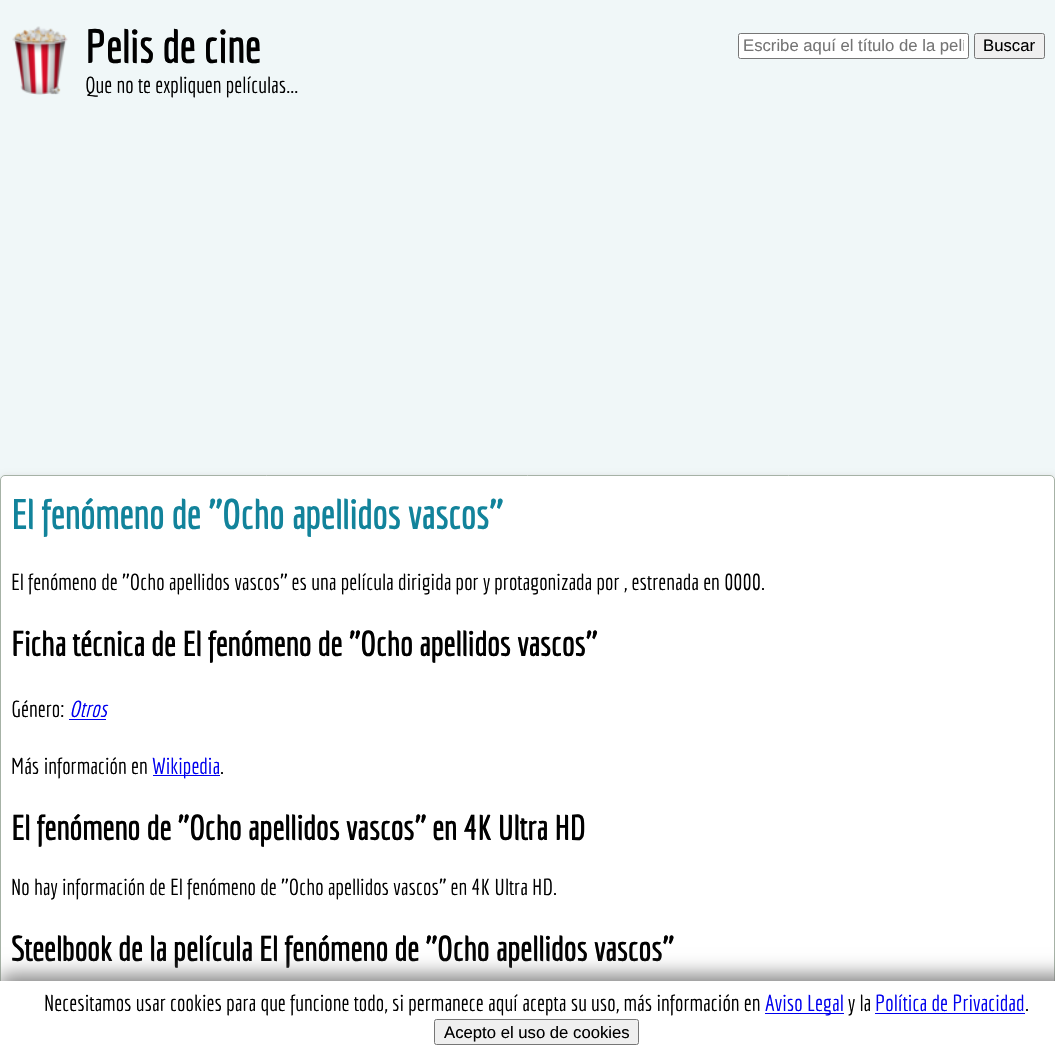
void draw(SkCanvas* canvas) {
    SkPaint paint;
    paint.setAntiAlias(true);
    canvas->clear(0xFFF0F7F8);
    canvas->drawImageRect(SkImages::DeferredFromEncodedData(SkData::MakeFromFileName("img1.png")), SkRect::MakeXYWH(12, 26, 56, 69), SkSamplingOptions());
    SkFont font1(fontMgr->matchFamilyStyle("Economica", SkFontStyle::Bold()), 45);
    font1.setSubpixel(true);
    paint.setColor(0xFF000000);
    canvas->drawString("Pelis de cine", 85, 63, font1, paint);
    SkFont font2(fontMgr->matchFamilyStyle("Economica", SkFontStyle::Normal()), 22.5f);
    font2.setSubpixel(true);
    canvas->drawString("Que no te expliquen películas...", 85, 93, font2, paint);
    paint.setColor(0xFFFFFFFF);
    canvas->drawRoundRect(SkRect::MakeXYWH(738.5f, 33.5f, 230, 25), 2, 2, paint);
    paint.setStyle(SkPaint::kStroke_Style);
    paint.setStrokeWidth(1);
    paint.setColor(0xFF767676);
    canvas->drawRoundRect(SkRect::MakeXYWH(738.5f, 33.5f, 230, 25), 2, 2, paint);
    canvas->save();
    canvas->clipRect(SkRect::MakeXYWH(743, 36, 221, 19));
    SkFont font3(fontMgr->matchFamilyStyle("Liberation Sans", SkFontStyle::Normal()), 16.7f);
    font3.setSubpixel(true);
    paint.setStyle(SkPaint::kFill_Style);
    paint.setColor(0xFF757575);
    canvas->drawString("Escribe aquí el título de la pelí", 743, 51, font3, paint);
    canvas->restore();
    paint.setColor(0xFFEFEFEF);
    canvas->drawRoundRect(SkRect::MakeXYWH(974.5f, 33.5f, 70, 25), 2, 2, paint);
    paint.setStyle(SkPaint::kStroke_Style);
    paint.setColor(0xFF767676);
    canvas->drawRoundRect(SkRect::MakeXYWH(974.5f, 33.5f, 70, 25), 2, 2, paint);
    paint.setStyle(SkPaint::kFill_Style);
    paint.setColor(0xFF000000);
    canvas->drawString("Buscar", 983, 51, font3, paint);
    paint.setColor(0xFFDDDDDD);
    paint.setMaskFilter(SkMaskFilter::MakeBlur(kNormal_SkBlurStyle, 3));
    canvas->drawRoundRect(SkRect::MakeXYWH(1, 476, 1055, 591), 5, 5, paint);
    paint.setMaskFilter(nullptr);
    paint.setColor(0xFFFFFFFF);
    canvas->drawRoundRect(SkRect::MakeXYWH(0.5f, 475.5f, 1054, 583), 4.5f, 4.5f, paint);
    paint.setStyle(SkPaint::kStroke_Style);
    paint.setColor(0xFFA6B2A6);
    canvas->drawRoundRect(SkRect::MakeXYWH(0.5f, 475.5f, 1054, 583), 4.5f, 4.5f, paint);
    SkFont font4(fontMgr->matchFamilyStyle("Economica", SkFontStyle::Bold()), 40);
    font4.setSubpixel(true);
    paint.setStyle(SkPaint::kFill_Style);
    paint.setColor(0xFF12839B);
    canvas->drawString("El fenómeno de ''Ocho apellidos vascos''", 11, 529, font4, paint);
    paint.setColor(0xFF000000);
    canvas->drawString("El fenómeno de ''Ocho apellidos vascos'' es una película dirigida por y protagonizada por , estrenada en 0000.", 11, 590, font2, paint);
    SkFont font5(fontMgr->matchFamilyStyle("Economica", SkFontStyle::Bold()), 33.75f);
    font5.setSubpixel(true);
    canvas->drawString("Ficha técnica de El fenómeno de ''Ocho apellidos vascos''", 11, 656, font5, paint);
    canvas->drawString("Género:", 11, 717, font2, paint);
    SkFont font6(fontMgr->matchFamilyStyle("Economica", SkFontStyle::Italic()), 22.5f);
    font6.setSubpixel(true);
    paint.setColor(0xFF0000EE);
    canvas->drawString("Otros", 69, 717, font6, paint);
    canvas->drawRect(SkRect::MakeXYWH(69, 719, 37, 1), paint);
    paint.setColor(0xFF000000);
    canvas->drawString("Más información en", 11, 774, font2, paint);
    paint.setColor(0xFF0000EE);
    canvas->drawRect(SkRect::MakeXYWH(153, 775, 67, 1), paint);
    canvas->drawString("Wikipedia", 152, 774, font2, paint);
    paint.setColor(0xFF000000);
    canvas->drawString(".", 220, 774, font2, paint);
    canvas->drawString("El fenómeno de ''Ocho apellidos vascos'' en 4K Ultra HD", 11, 840, font5, paint);
    canvas->drawString("No hay información de El fenómeno de ''Ocho apellidos vascos'' en 4K Ultra HD.", 11, 895, font2, paint);
    canvas->drawString("Steelbook de la película El fenómeno de ''Ocho apellidos vascos''", 11, 961, font5, paint);
    paint.setColor(0xFF808080);
    paint.setMaskFilter(SkMaskFilter::MakeBlur(kNormal_SkBlurStyle, 9.5f));
    canvas->drawRect(SkRect::MakeXYWH(0, 975, 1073, 73), paint);
    paint.setMaskFilter(nullptr);
    paint.setColor(0xFFFFFFFF);
    canvas->drawRect(SkRect::MakeXYWH(0, 981, 1055, 72), paint);
    paint.setColor(0xFF000000);
    canvas->drawString("Necesitamos usar cookies para que funcione todo, si permanece aquí acepta su uso, más información en", 44, 1011, font2, paint);
    paint.setColor(0xFF0000EE);
    canvas->drawRect(SkRect::MakeXYWH(765, 1013, 79, 1), paint);
    canvas->drawString("Aviso Legal", 765, 1011, font2, paint);
    paint.setColor(0xFF000000);
    canvas->drawString("y la", 848, 1011, font2, paint);
    paint.setColor(0xFF0000EE);
    canvas->drawString("Política de Privacidad", 875, 1011, font2, paint);
    canvas->drawRect(SkRect::MakeXYWH(875, 1013, 150, 1), paint);
    paint.setColor(0xFF000000);
    canvas->drawString(".", 1025, 1011, font2, paint);
    paint.setColor(0xFFEFEFEF);
    canvas->drawRoundRect(SkRect::MakeXYWH(434.5f, 1019.5f, 204, 25), 2, 2, paint);
    paint.setStyle(SkPaint::kStroke_Style);
    paint.setColor(0xFF767676);
    canvas->drawRoundRect(SkRect::MakeXYWH(434.5f, 1019.5f, 204, 25), 2, 2, paint);
    paint.setStyle(SkPaint::kFill_Style);
    paint.setColor(0xFF000000);
    canvas->drawString("Acepto el uso de cookies", 444, 1038, font3, paint);
}
